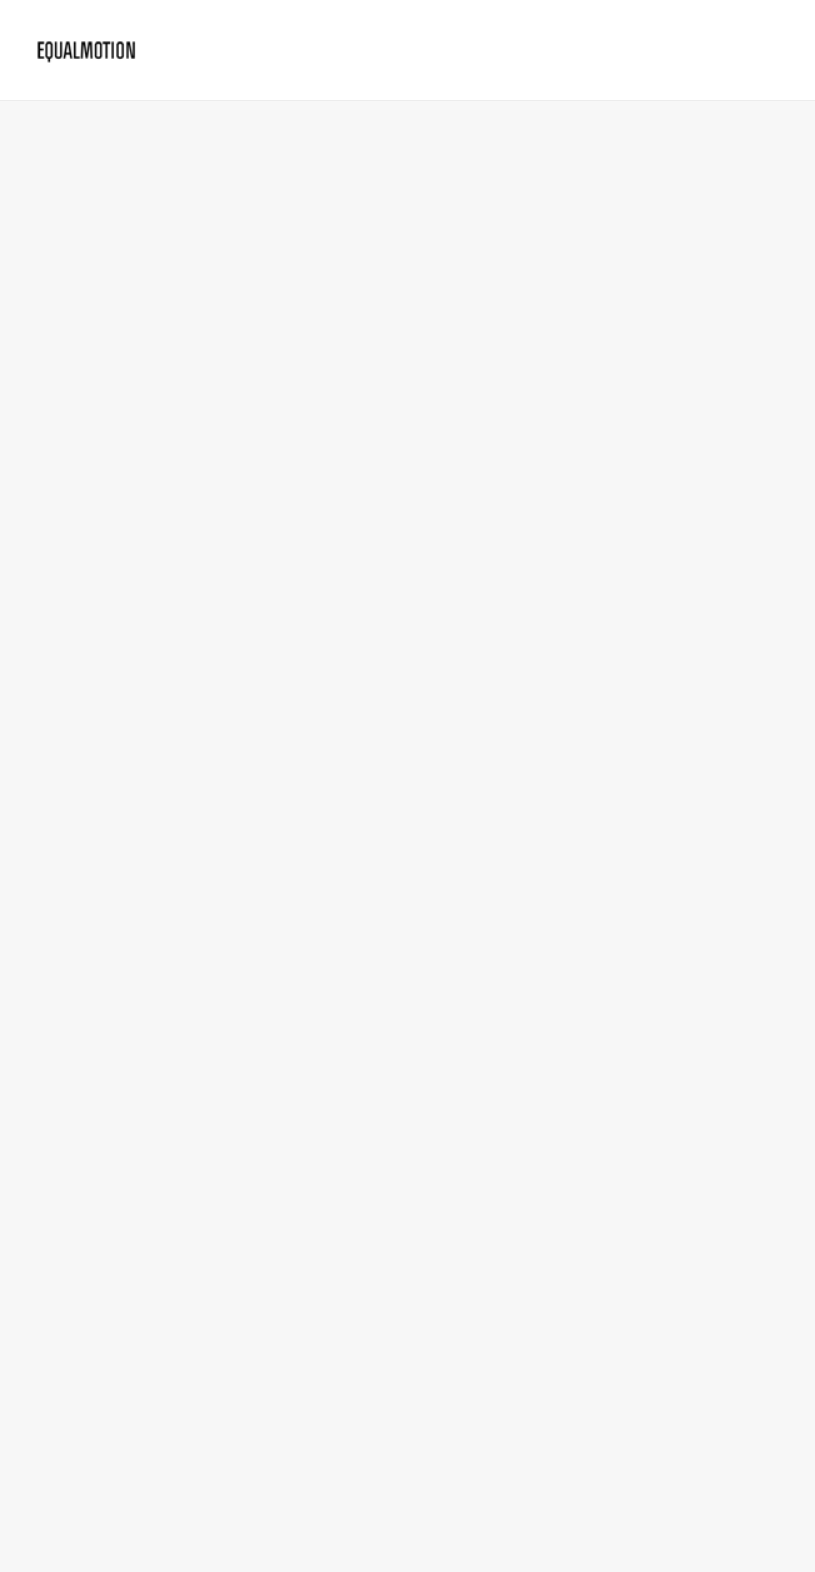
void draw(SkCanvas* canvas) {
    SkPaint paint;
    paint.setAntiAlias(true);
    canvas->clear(0xFFF7F7F7);
    paint.setColor(0xFFFFFFFF);
    canvas->drawRect(SkRect::MakeXYWH(0, 0, 815, 100), paint);
    paint.setColor(0xFFECECEC);
    canvas->drawRect(SkRect::MakeXYWH(0, 100, 815, 1), paint);
    canvas->drawImageRect(SkImages::DeferredFromEncodedData(SkData::MakeFromFileName("img1.png")), SkRect::MakeXYWH(37, 41, 99, 22), SkSamplingOptions());
}
